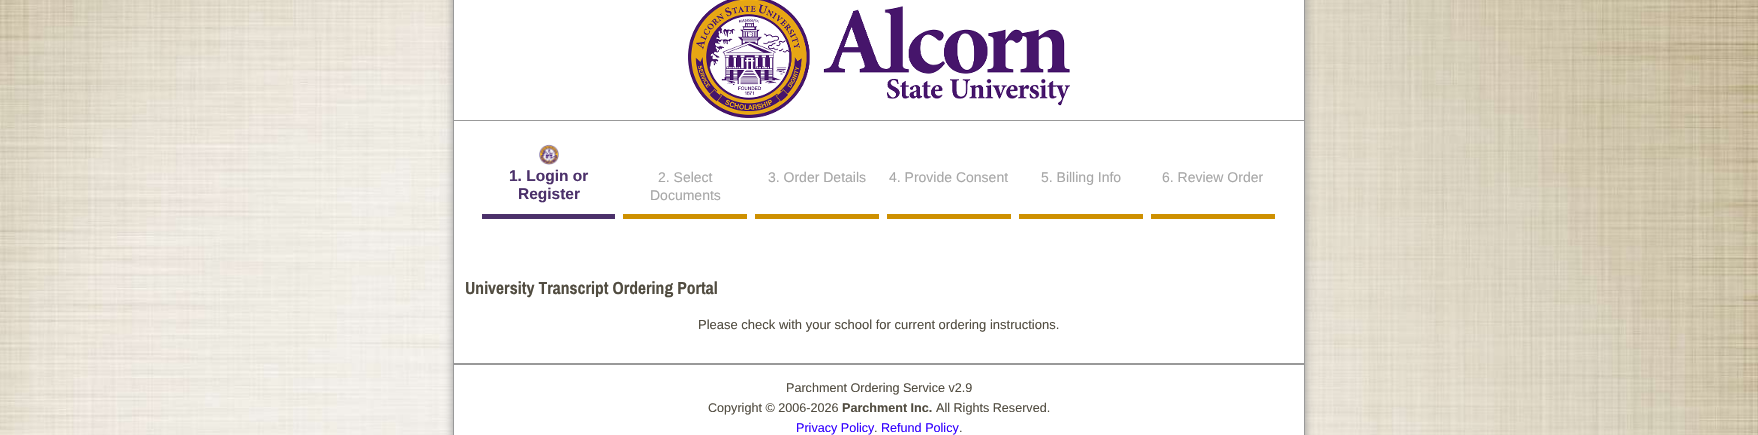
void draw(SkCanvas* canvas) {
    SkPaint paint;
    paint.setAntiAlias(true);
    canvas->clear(0xFFFFFFFF);
    canvas->drawImageRect(SkImages::DeferredFromEncodedData(SkData::MakeFromFileName("img1.png")), SkRect::MakeXYWH(0, 0, 1758, 435), SkSamplingOptions());
    paint.setColor(0xFF999999);
    paint.setMaskFilter(SkMaskFilter::MakeBlur(kNormal_SkBlurStyle, 5));
    canvas->drawRoundRect(SkRect::MakeXYWH(453, -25, 852, 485), 10, 10, paint);
    paint.setMaskFilter(nullptr);
    paint.setColor(0xFFFFFFFF);
    canvas->drawRect(SkRect::MakeXYWH(454, 0, 850, 435), paint);
    paint.setColor(0xFF999999);
    canvas->drawPath(SkPathBuilder(SkPathFillType::kEvenOdd).moveTo(463, -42).lineTo(1295, -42).cubicTo(1301, -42, 1305, -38, 1305, -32).lineTo(1305, 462).cubicTo(1305, 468, 1301, 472, 1295, 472).lineTo(463, 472).cubicTo(457, 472, 453, 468, 453, 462).lineTo(453, -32).cubicTo(453, -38, 457, -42, 463, -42).close().moveTo(463, -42).lineTo(1295, -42).cubicTo(1300, -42, 1304, -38, 1304, -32).lineTo(1304, 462).cubicTo(1304, 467, 1300, 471, 1295, 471).lineTo(463, 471).cubicTo(458, 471, 454, 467, 454, 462).lineTo(454, -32).cubicTo(454, -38, 458, -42, 463, -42).close().detach(), paint);
    canvas->drawImageRect(SkImages::DeferredFromEncodedData(SkData::MakeFromFileName("img2.png")), SkRect::MakeXYWH(688, 0, 382, 118), SkSamplingOptions());
    canvas->drawRect(SkRect::MakeXYWH(454, 120, 850, 1), paint);
    canvas->drawImageRect(SkImages::DeferredFromEncodedData(SkData::MakeFromFileName("img3.png")), SkRect::MakeXYWH(539, 144, 20, 21), SkSamplingOptions());
    SkFont font1(fontMgr->matchFamilyStyle("Liberation Sans", SkFontStyle::Bold()), 15.5f);
    font1.setSubpixel(true);
    paint.setColor(0xFF4B306A);
    canvas->drawString("1. Login or", 509, 181, font1, paint);
    canvas->drawString("Register", 518, 199, font1, paint);
    SkFont font2(fontMgr->matchFamilyStyle("Liberation Sans", SkFontStyle::Normal()), 14);
    font2.setSubpixel(true);
    paint.setColor(0xFFA7A7A7);
    canvas->drawString("2. Select", 658, 182, font2, paint);
    canvas->drawString("Documents", 650, 200, font2, paint);
    canvas->drawString("3. Order Details", 768, 182, font2, paint);
    canvas->drawString("4. Provide Consent", 889, 182, font2, paint);
    canvas->drawString("5. Billing Info", 1041, 182, font2, paint);
    canvas->drawString("6. Review Order", 1162, 182, font2, paint);
    paint.setColor(0xFF4B306A);
    canvas->drawRect(SkRect::MakeXYWH(482, 214, 133, 5), paint);
    paint.setColor(0xFFCE9000);
    canvas->drawRect(SkRect::MakeXYWH(623, 214, 124, 5), paint);
    canvas->drawRect(SkRect::MakeXYWH(755, 214, 124, 5), paint);
    canvas->drawRect(SkRect::MakeXYWH(887, 214, 124, 5), paint);
    canvas->drawRect(SkRect::MakeXYWH(1019, 214, 124, 5), paint);
    canvas->drawRect(SkRect::MakeXYWH(1151, 214, 124, 5), paint);
    SkFont font3(fontMgr->matchFamilyStyle("Archivo Narrow", SkFontStyle::Bold()), 17.5f);
    font3.setSubpixel(true);
    paint.setColor(0xFF514C40);
    canvas->drawString("University Transcript Ordering Portal", 465, 294, font3, paint);
    SkFont font4(fontMgr->matchFamilyStyle("Liberation Sans", SkFontStyle::Normal()), 13);
    font4.setSubpixel(true);
    canvas->drawString("Please check with your school for current ordering instructions.", 698, 329, font4, paint);
    paint.setColor(0xFF999999);
    canvas->drawRect(SkRect::MakeXYWH(454, 363, 850, 2), paint);
    SkFont font5(fontMgr->matchFamilyStyle("Liberation Sans", SkFontStyle::Normal()), 12.6f);
    font5.setSubpixel(true);
    paint.setColor(0xFF514C40);
    canvas->drawString("Parchment Ordering Service v2.9", 786, 392, font5, paint);
    canvas->drawString("Copyright © 2006-2026", 708, 412, font5, paint);
    SkFont font6(fontMgr->matchFamilyStyle("Liberation Sans", SkFontStyle::Bold()), 12.6f);
    font6.setSubpixel(true);
    canvas->drawString("Parchment Inc.", 842, 412, font6, paint);
    canvas->drawString("All Rights Reserved.", 936, 412, font5, paint);
    paint.setColor(0xFF3300FF);
    canvas->drawString("Privacy Policy", 796, 432, font5, paint);
    paint.setColor(0xFF514C40);
    canvas->drawString(".", 874, 432, font5, paint);
    paint.setColor(0xFF3300FF);
    canvas->drawString("Refund Policy", 881, 432, font5, paint);
    paint.setColor(0xFF514C40);
    canvas->drawString(".", 959, 432, font5, paint);
}
